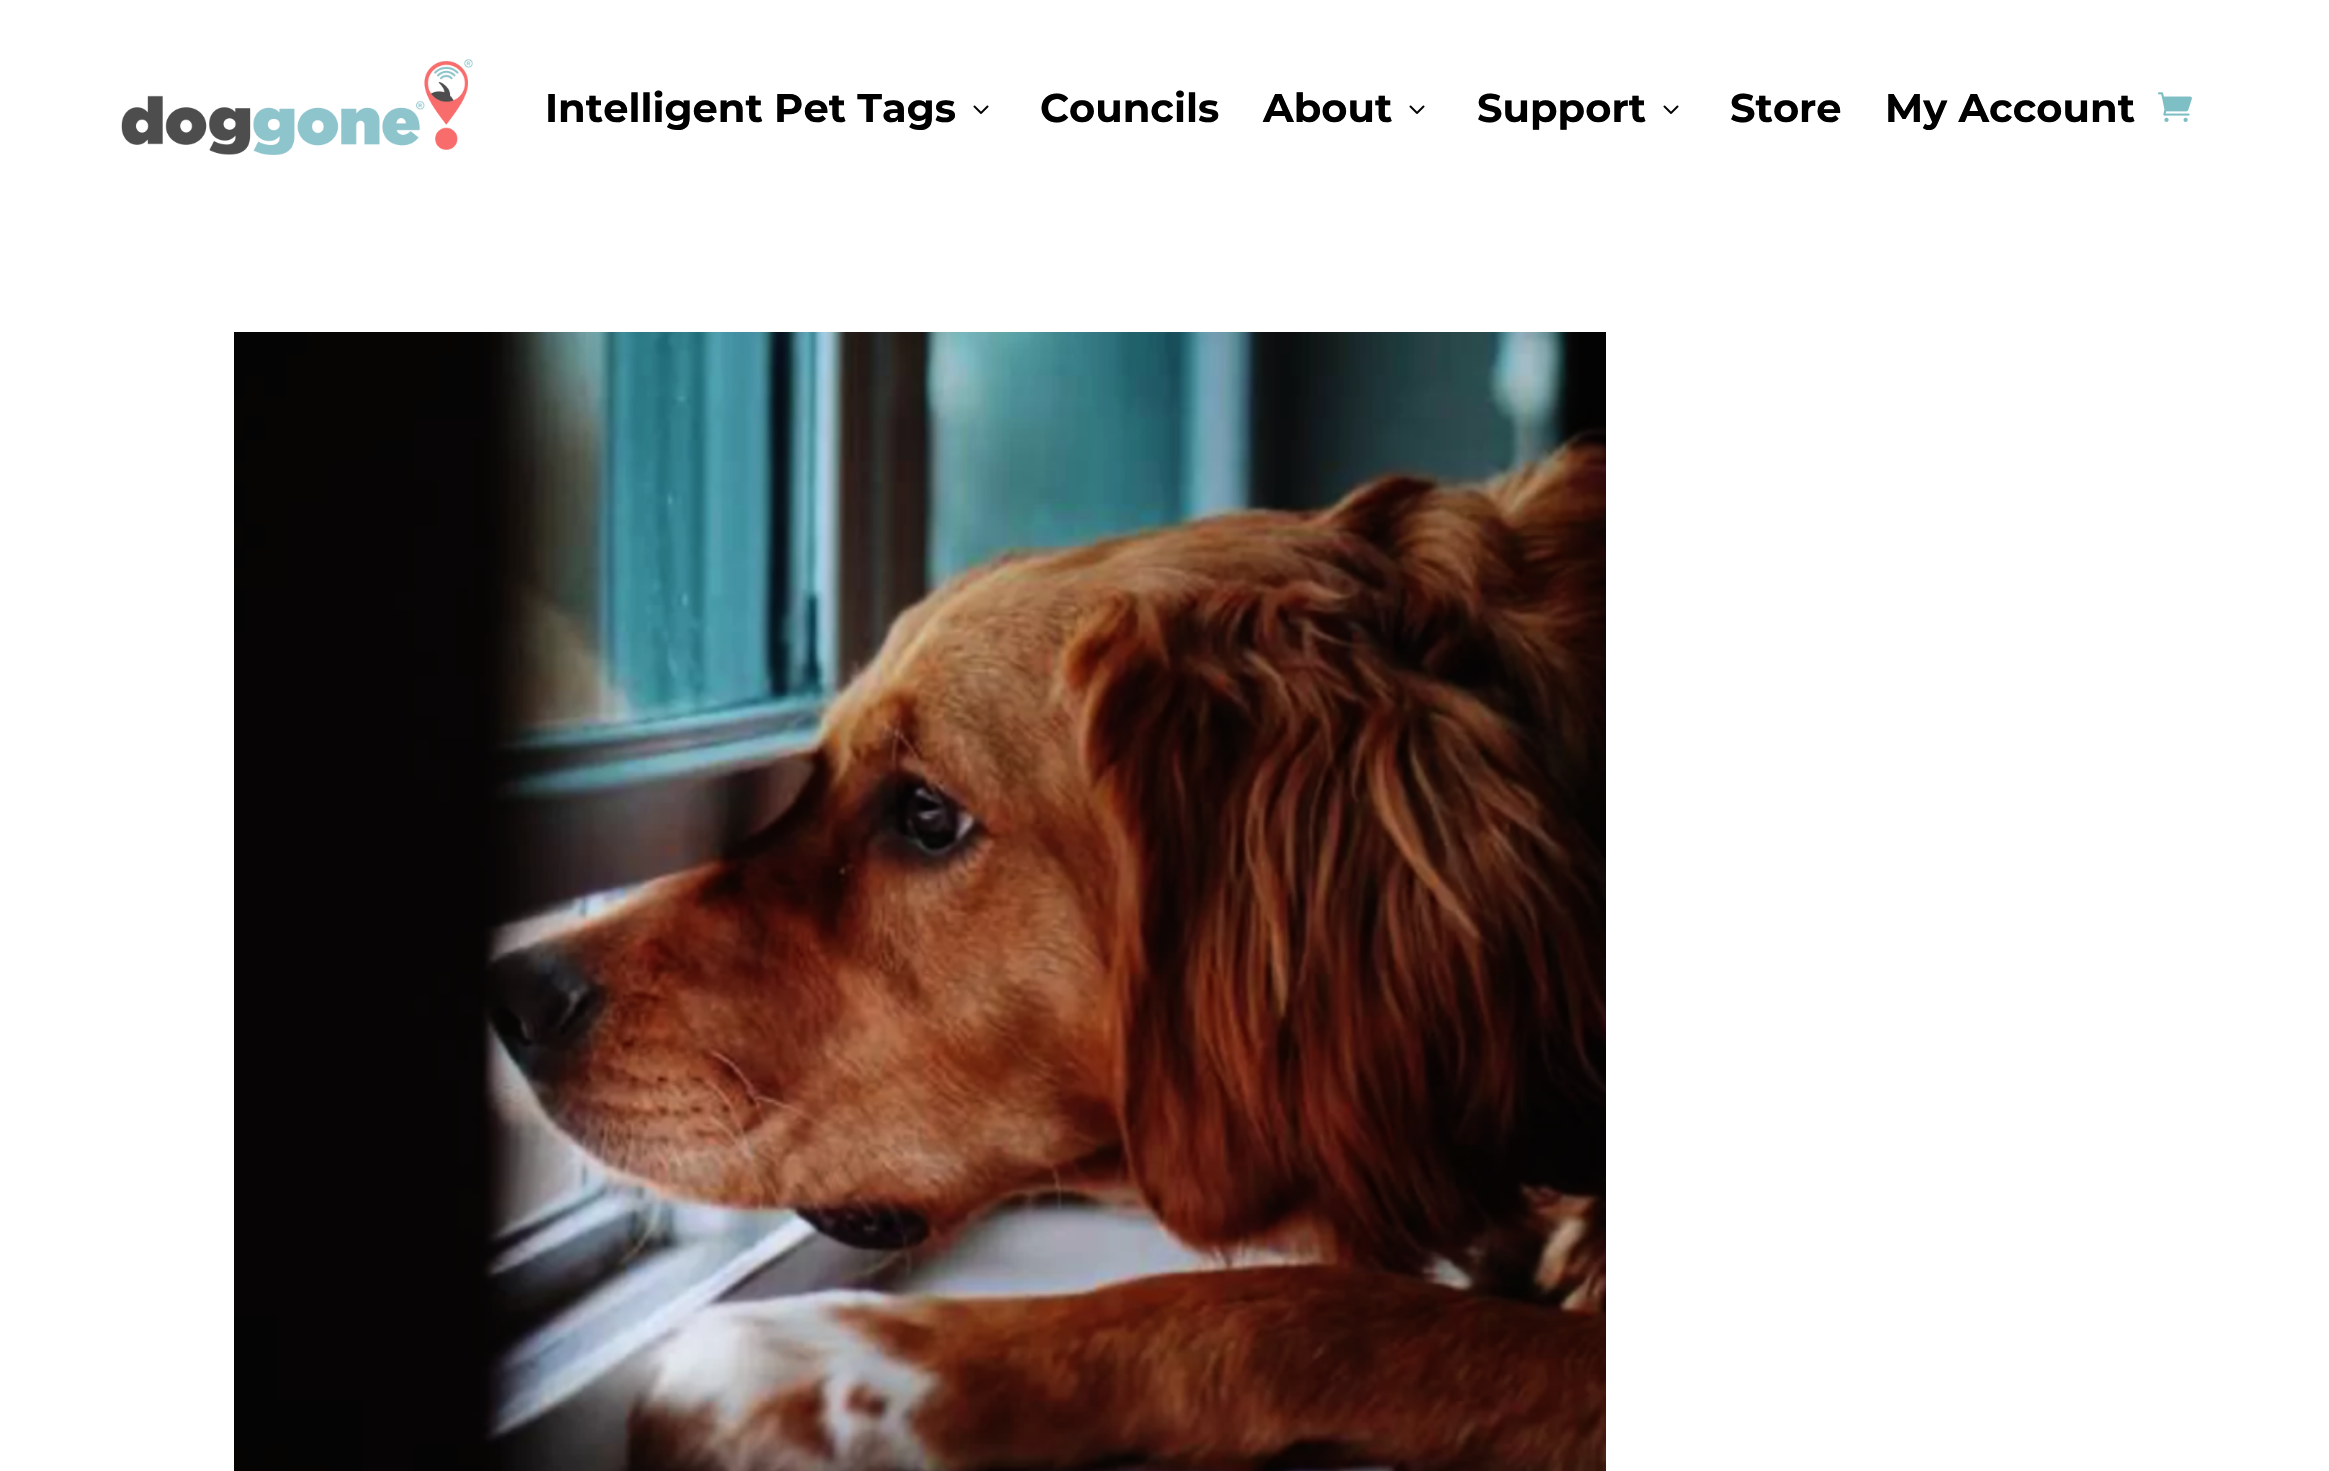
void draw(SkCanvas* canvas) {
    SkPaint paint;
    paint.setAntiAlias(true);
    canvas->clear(0xFFFFFFFF);
    canvas->drawImageRect(SkImages::DeferredFromEncodedData(SkData::MakeFromFileName("img1.png")), SkRect::MakeXYWH(121, 59, 352, 96), SkSamplingOptions());
    SkFont font1(fontMgr->matchFamilyStyle("Montserrat", SkFontStyle::Bold()), 40);
    font1.setSubpixel(true);
    paint.setColor(0xFF000000);
    canvas->drawString("Intelligent Pet Tags", 545, 122, font1, paint);
    canvas->drawImageRect(SkImages::DeferredFromEncodedData(SkData::MakeFromFileName("img2.png")), SkRect::MakeXYWH(973, 105, 16, 9), SkSamplingOptions());
    canvas->drawString("Councils", 1040, 122, font1, paint);
    canvas->drawString("About", 1263, 122, font1, paint);
    canvas->drawImageRect(SkImages::DeferredFromEncodedData(SkData::MakeFromFileName("img2.png")), SkRect::MakeXYWH(1409, 105, 16, 9), SkSamplingOptions());
    canvas->drawString("Support", 1477, 122, font1, paint);
    canvas->drawImageRect(SkImages::DeferredFromEncodedData(SkData::MakeFromFileName("img2.png")), SkRect::MakeXYWH(1663, 105, 16, 9), SkSamplingOptions());
    canvas->drawString("Store", 1730, 122, font1, paint);
    canvas->drawString("My Account", 1885, 122, font1, paint);
    canvas->drawImageRect(SkImages::DeferredFromEncodedData(SkData::MakeFromFileName("img3.png")), SkRect::MakeXYWH(2158, 92, 34, 30), SkSamplingOptions());
    canvas->drawImageRect(SkImages::DeferredFromEncodedData(SkData::MakeFromFileName("img4.png")), SkRect::MakeXYWH(234, 332, 1372, 1139), SkSamplingOptions());
}
